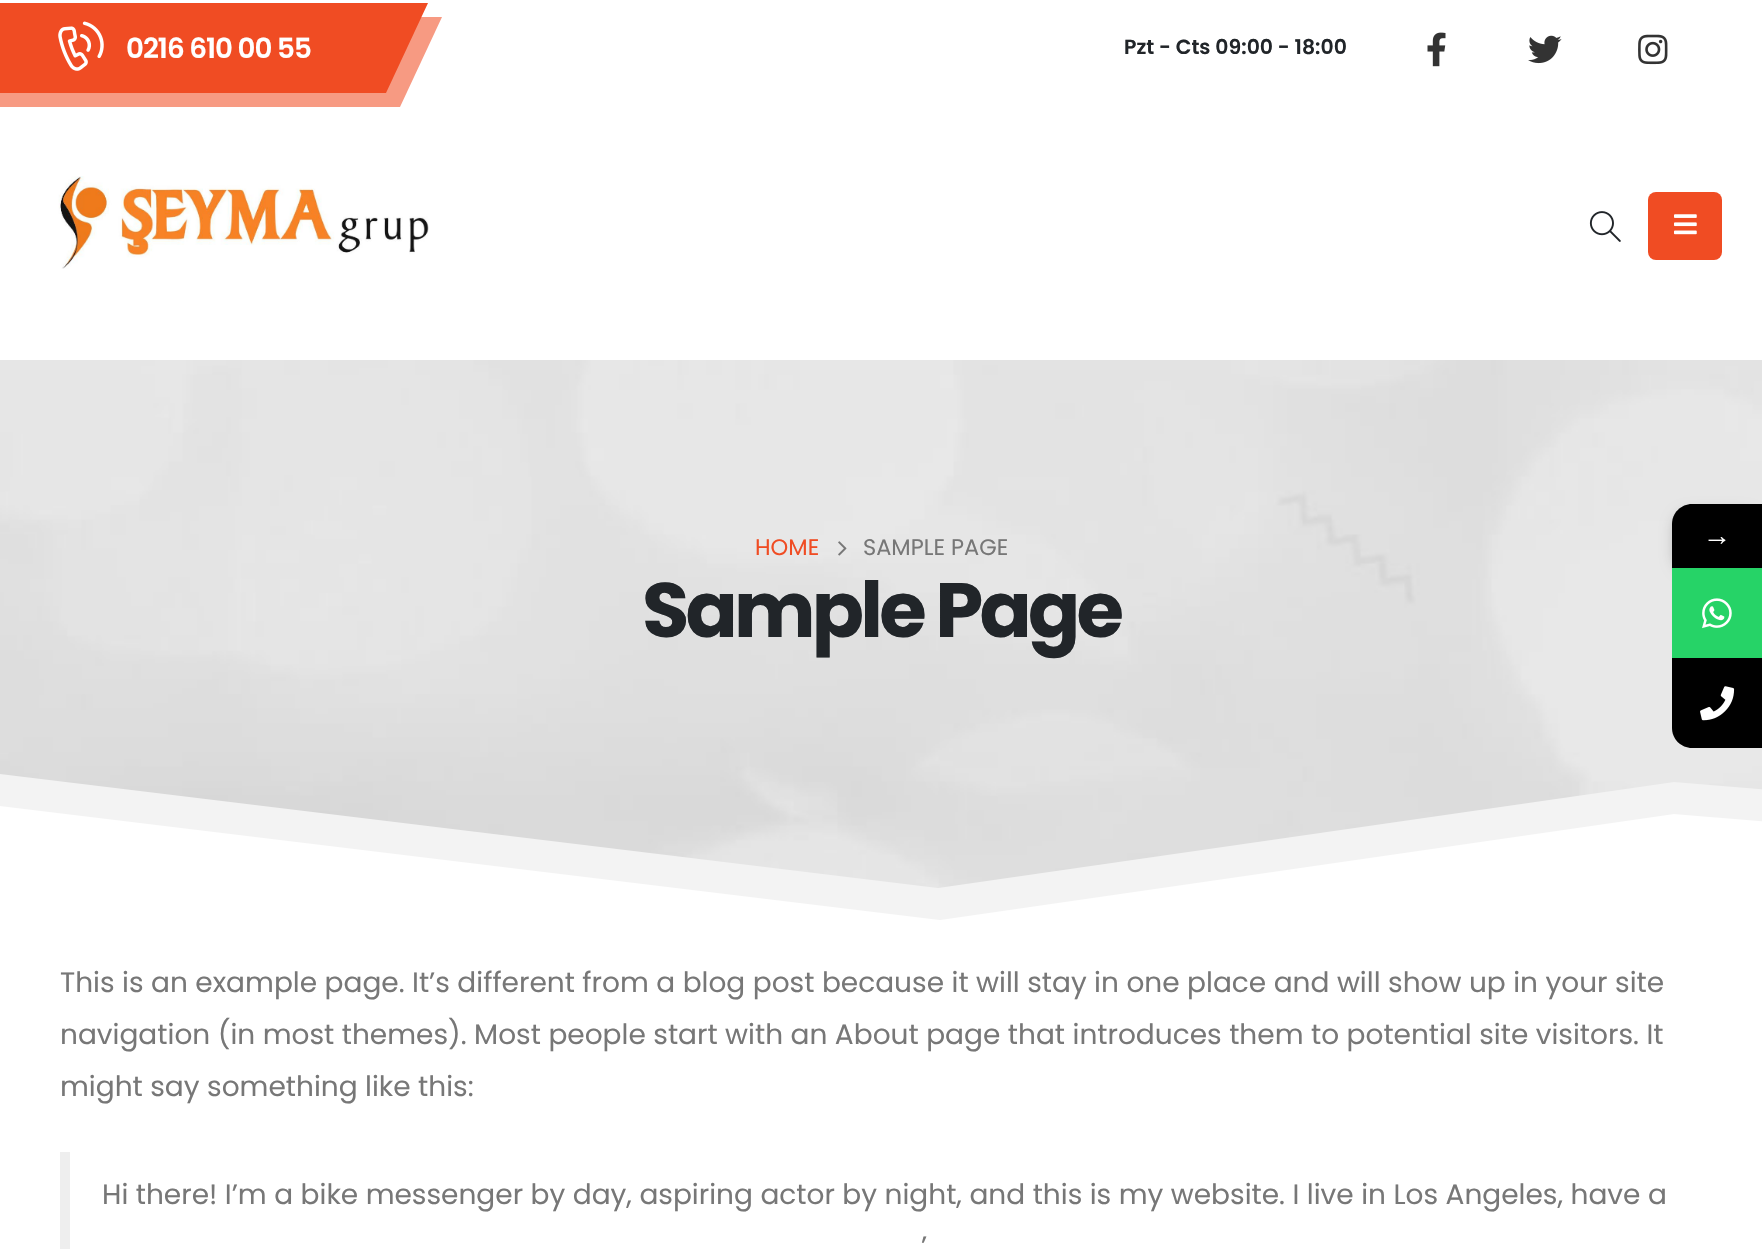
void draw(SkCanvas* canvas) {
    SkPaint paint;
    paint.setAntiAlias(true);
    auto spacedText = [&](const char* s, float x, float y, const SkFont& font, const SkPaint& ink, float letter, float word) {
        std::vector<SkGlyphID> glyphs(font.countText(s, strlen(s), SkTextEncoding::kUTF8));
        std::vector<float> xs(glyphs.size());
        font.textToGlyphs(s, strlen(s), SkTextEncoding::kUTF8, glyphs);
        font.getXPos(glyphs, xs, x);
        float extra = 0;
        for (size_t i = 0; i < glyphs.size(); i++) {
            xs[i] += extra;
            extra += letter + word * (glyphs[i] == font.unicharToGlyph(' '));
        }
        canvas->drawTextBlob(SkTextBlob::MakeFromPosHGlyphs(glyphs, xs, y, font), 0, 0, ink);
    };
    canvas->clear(0xFFFFFFFF);
    paint.setColor(0xFFF79A82);
    canvas->drawPath(SkPathBuilder().moveTo(-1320, 17).lineTo(442, 17).lineTo(400, 107).lineTo(-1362, 107).close().detach(), paint);
    paint.setColor(0xFFF04C23);
    canvas->drawPath(SkPathBuilder().moveTo(-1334, 3).lineTo(428, 3).lineTo(386, 93).lineTo(-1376, 93).close().detach(), paint);
    canvas->drawImageRect(SkImages::DeferredFromEncodedData(SkData::MakeFromFileName("img1.png")), SkRect::MakeXYWH(58, 21, 46, 50), SkSamplingOptions());
    SkFont font1(fontMgr->matchFamilyStyle("Poppins", SkFontStyle(600, SkFontStyle::kNormal_Width, SkFontStyle::kUpright_Slant)), 27.75f);
    font1.setSubpixel(true);
    paint.setColor(0xFFFFFFFF);
    spacedText("0216 610 00 55", 126, 58, font1, paint, -1, 0);
    SkFont font2(fontMgr->matchFamilyStyle("Poppins", SkFontStyle(600, SkFontStyle::kNormal_Width, SkFontStyle::kUpright_Slant)), 20.4f);
    font2.setSubpixel(true);
    paint.setColor(0xFF212529);
    canvas->drawString("Pzt - Cts 09:00 - 18:00", 1124, 54, font2, paint);
    canvas->drawImageRect(SkImages::DeferredFromEncodedData(SkData::MakeFromFileName("img2.png")), SkRect::MakeXYWH(1427, 32, 19, 35), SkSamplingOptions());
    canvas->drawImageRect(SkImages::DeferredFromEncodedData(SkData::MakeFromFileName("img3.png")), SkRect::MakeXYWH(1528, 35, 34, 29), SkSamplingOptions());
    canvas->drawImageRect(SkImages::DeferredFromEncodedData(SkData::MakeFromFileName("img4.png")), SkRect::MakeXYWH(1638, 34, 30, 31), SkSamplingOptions());
    canvas->drawImageRect(SkImages::DeferredFromEncodedData(SkData::MakeFromFileName("img5.png")), SkRect::MakeXYWH(58, 176, 371, 93), SkSamplingOptions());
    canvas->drawImageRect(SkImages::DeferredFromEncodedData(SkData::MakeFromFileName("img6.png")), SkRect::MakeXYWH(1589, 211, 32, 31), SkSamplingOptions());
    paint.setColor(0xFFF04C23);
    canvas->drawRoundRect(SkRect::MakeXYWH(1648, 192, 74, 68), 8, 8, paint);
    canvas->drawImageRect(SkImages::DeferredFromEncodedData(SkData::MakeFromFileName("img7.png")), SkRect::MakeXYWH(1674, 214, 23, 21), SkSamplingOptions());
    canvas->drawImageRect(SkImages::DeferredFromEncodedData(SkData::MakeFromFileName("img8.png")), SkRect::MakeXYWH(0, 360, 1762, 528), SkSamplingOptions());
    SkFont font3(fontMgr->matchFamilyStyle("Poppins", SkFontStyle::Normal()), 22.5f);
    font3.setSubpixel(true);
    canvas->drawString("HOME", 755, 555, font3, paint);
    canvas->drawImageRect(SkImages::DeferredFromEncodedData(SkData::MakeFromFileName("img9.png")), SkRect::MakeXYWH(838, 541, 9, 15), SkSamplingOptions());
    paint.setColor(0xFF777777);
    canvas->drawString("SAMPLE PAGE", 863, 555, font3, paint);
    SkFont font4(fontMgr->matchFamilyStyle("Poppins", SkFontStyle::Bold()), 77);
    font4.setSubpixel(true);
    paint.setColor(0xFF212529);
    spacedText("Sample Page", 642, 637, font4, paint, -3.8f, 0);
    canvas->save();
    canvas->clipRect(SkRect::MakeXYWH(0, 712, 1762, 244));
    paint.setColor(0xFFF3F3F3);
    canvas->drawPath(SkPathBuilder().moveTo(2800, 778).lineTo(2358, 838).lineTo(1674, 782).lineTo(938, 888).lineTo(-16, 772).lineTo(-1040, 876).lineTo(-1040, 960).lineTo(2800, 960).close().detach(), paint);
    paint.setColor(0xFFFFFFFF);
    canvas->drawPath(SkPathBuilder().moveTo(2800, 808).lineTo(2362, 870).lineTo(1674, 814).lineTo(940, 920).lineTo(-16, 804).lineTo(-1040, 908).lineTo(-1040, 960).lineTo(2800, 960).close().detach(), paint);
    canvas->restore();
    SkFont font5(fontMgr->matchFamilyStyle("Poppins", SkFontStyle::Normal()), 28);
    font5.setSubpixel(true);
    paint.setColor(0xFF777777);
    canvas->drawString("This is an example page. It’s different from a blog post because it will stay in one place and will show up in your site", 60, 992, font5, paint);
    canvas->drawString("navigation (in most themes). Most people start with an About page that introduces them to potential site visitors. It", 60, 1044, font5, paint);
    canvas->drawString("might say something like this:", 60, 1096, font5, paint);
    paint.setColor(0xFFEEEEEE);
    canvas->drawRect(SkRect::MakeXYWH(60, 1152, 10, 97), paint);
    paint.setColor(0xFF777777);
    canvas->drawString("Hi there! I’m a bike messenger by day, aspiring actor by night, and this is my website. I live in Los Angeles, have a", 102, 1204, font5, paint);
    canvas->drawString("’", 921, 1256, font5, paint);
    paint.setColor(0x29000000);
    paint.setMaskFilter(SkMaskFilter::MakeBlur(kNormal_SkBlurStyle, 6));
    canvas->drawRoundRect(SkRect::MakeXYWH(1672, 510, 90, 64), 20, 20, paint);
    paint.setMaskFilter(nullptr);
    paint.setColor(0xFF000000);
    canvas->drawPath(SkPathBuilder().moveTo(1692, 504).lineTo(1762, 504).lineTo(1762, 568).lineTo(1672, 568).lineTo(1672, 524).cubicTo(1672, 513, 1681, 504, 1692, 504).close().detach(), paint);
    SkFont font6(fontMgr->matchFamilyStyle("Liberation Serif", SkFontStyle::Normal()), 28);
    font6.setSubpixel(true);
    paint.setColor(0xFFFFFFFF);
    canvas->drawString("→", 1703, 545, font6, paint);
    paint.setColor(0xFF26D367);
    canvas->drawRect(SkRect::MakeXYWH(1672, 568, 90, 90), paint);
    canvas->drawImageRect(SkImages::DeferredFromEncodedData(SkData::MakeFromFileName("img10.png")), SkRect::MakeXYWH(1702, 598, 30, 31), SkSamplingOptions());
    paint.setColor(0xFF000000);
    canvas->drawPath(SkPathBuilder().moveTo(1672, 658).lineTo(1762, 658).lineTo(1762, 748).lineTo(1692, 748).cubicTo(1681, 748, 1672, 739, 1672, 728).close().detach(), paint);
    canvas->drawImageRect(SkImages::DeferredFromEncodedData(SkData::MakeFromFileName("img11.png")), SkRect::MakeXYWH(1700, 686, 35, 35), SkSamplingOptions());
}
